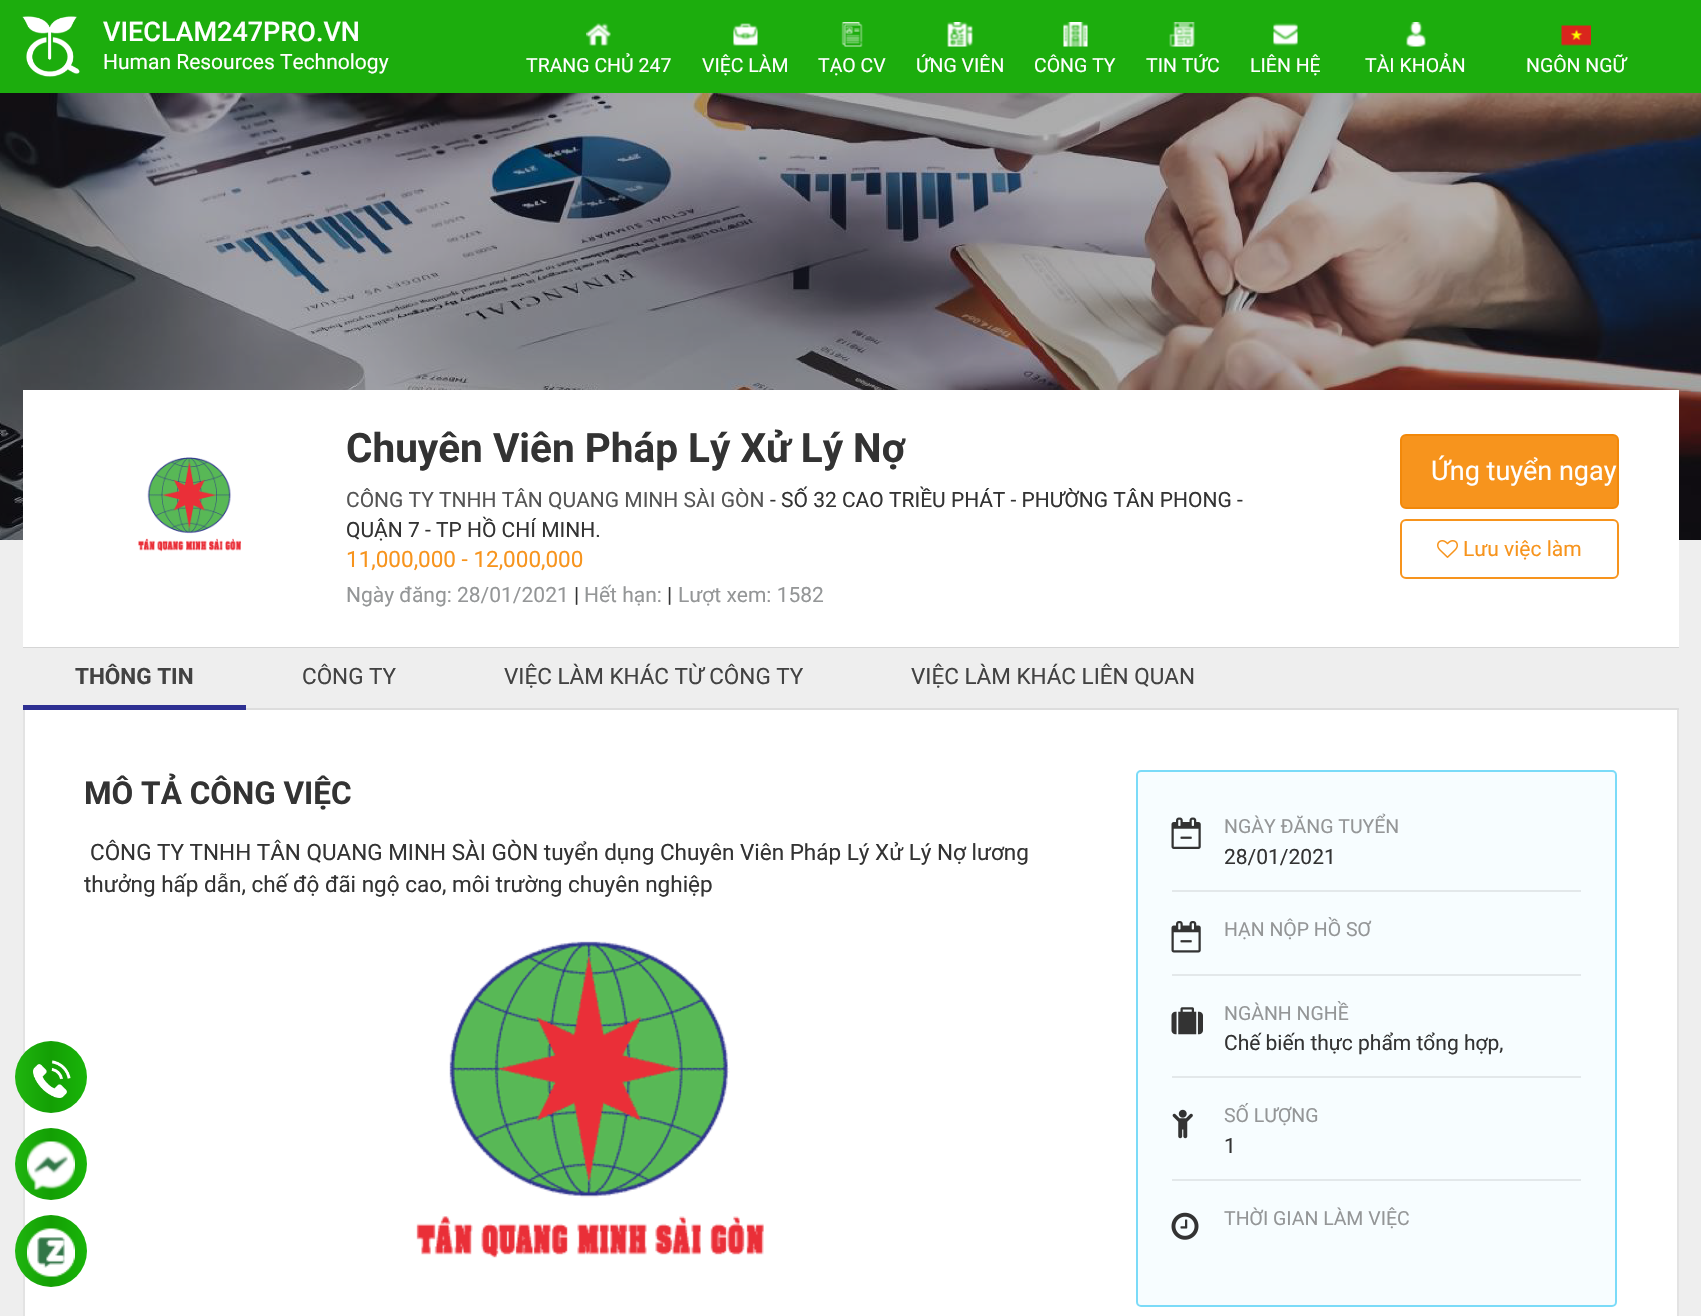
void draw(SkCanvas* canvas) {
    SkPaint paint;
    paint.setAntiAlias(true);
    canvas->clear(0xFFEEEEEE);
    paint.setColor(0xFF1CAD0D);
    canvas->drawRect(SkRect::MakeXYWH(0, 0, 1701, 93), paint);
    canvas->drawImageRect(SkImages::DeferredFromEncodedData(SkData::MakeFromFileName("img1.png")), SkRect::MakeXYWH(22, 16, 58, 61), SkSamplingOptions());
    SkFont font1(fontMgr->matchFamilyStyle("Roboto", SkFontStyle(500, SkFontStyle::kNormal_Width, SkFontStyle::kUpright_Slant)), 27);
    font1.setSubpixel(true);
    paint.setColor(0xFFFFFFFF);
    canvas->drawString("VIECLAM247PRO.VN", 103, 41, font1, paint);
    SkFont font2(fontMgr->matchFamilyStyle("Roboto", SkFontStyle::Normal()), 21);
    font2.setSubpixel(true);
    canvas->drawString("Human Resources Technology", 103, 69, font2, paint);
    canvas->drawImageRect(SkImages::DeferredFromEncodedData(SkData::MakeFromFileName("img2.png")), SkRect::MakeXYWH(586, 23, 25, 23), SkSamplingOptions());
    SkFont font3(fontMgr->matchFamilyStyle("Roboto", SkFontStyle::Normal()), 19.5f);
    font3.setSubpixel(true);
    canvas->drawString("TRANG CHỦ 247", 526, 72, font3, paint);
    canvas->drawImageRect(SkImages::DeferredFromEncodedData(SkData::MakeFromFileName("img3.png")), SkRect::MakeXYWH(733, 23, 25, 23), SkSamplingOptions());
    canvas->drawString("VIỆC LÀM", 702, 72, font3, paint);
    canvas->drawImageRect(SkImages::DeferredFromEncodedData(SkData::MakeFromFileName("img4.png")), SkRect::MakeXYWH(841, 22, 22, 25), SkSamplingOptions());
    canvas->drawString("TẠO CV", 818, 72, font3, paint);
    canvas->drawImageRect(SkImages::DeferredFromEncodedData(SkData::MakeFromFileName("img5.png")), SkRect::MakeXYWH(947, 22, 26, 25), SkSamplingOptions());
    canvas->drawString("ỨNG VIÊN", 916, 72, font3, paint);
    canvas->drawImageRect(SkImages::DeferredFromEncodedData(SkData::MakeFromFileName("img6.png")), SkRect::MakeXYWH(1063, 22, 25, 25), SkSamplingOptions());
    canvas->drawString("CÔNG TY", 1034, 72, font3, paint);
    canvas->drawImageRect(SkImages::DeferredFromEncodedData(SkData::MakeFromFileName("img7.png")), SkRect::MakeXYWH(1169, 22, 26, 25), SkSamplingOptions());
    canvas->drawString("TIN TỨC", 1146, 72, font3, paint);
    canvas->drawImageRect(SkImages::DeferredFromEncodedData(SkData::MakeFromFileName("img8.png")), SkRect::MakeXYWH(1273, 23, 25, 23), SkSamplingOptions());
    canvas->drawString("LIÊN HỆ", 1250, 72, font3, paint);
    canvas->drawImageRect(SkImages::DeferredFromEncodedData(SkData::MakeFromFileName("img9.png")), SkRect::MakeXYWH(1406, 22, 20, 25), SkSamplingOptions());
    canvas->drawString("TÀI KHOẢN", 1365, 72, font3, paint);
    canvas->drawImageRect(SkImages::DeferredFromEncodedData(SkData::MakeFromFileName("img10.png")), SkRect::MakeXYWH(1561, 25, 30, 21), SkSamplingOptions());
    canvas->drawString("NGÔN NGỮ", 1526, 72, font3, paint);
    canvas->drawRect(SkRect::MakeXYWH(25, 710, 1652, 606), paint);
    paint.setColor(0xFFE3E3E3);
    canvas->drawRect(SkRect::MakeXYWH(23, 710, 2, 606), paint);
    {
        const SkColor colors[] = {0xFF1FB50F, 0xFF139F04, 0xFF19B509};
        const float stops[] = {0, 0.5f, 1};
        const SkPoint ends[] = {{15, 1077}, {87, 1077}};
        paint.setShader(SkGradientShader::MakeLinear(ends, colors, stops, 3, SkTileMode::kClamp));
        paint.setAlpha(255);
    }
    canvas->drawCircle(51, 1077, 36, paint);
    canvas->drawImageRect(SkImages::DeferredFromEncodedData(SkData::MakeFromFileName("img11.png")), SkRect::MakeXYWH(33, 1060, 38, 38), SkSamplingOptions());
    {
        const SkColor colors[] = {0xFF1FB50F, 0xFF139F04, 0xFF19B509};
        const float stops[] = {0, 0.5f, 1};
        const SkPoint ends[] = {{15, 1164}, {87, 1164}};
        paint.setShader(SkGradientShader::MakeLinear(ends, colors, stops, 3, SkTileMode::kClamp));
        paint.setAlpha(255);
    }
    canvas->drawCircle(51, 1164, 36, paint);
    canvas->drawImageRect(SkImages::DeferredFromEncodedData(SkData::MakeFromFileName("img12.png")), SkRect::MakeXYWH(27, 1141, 48, 49), SkSamplingOptions());
    {
        const SkColor colors[] = {0xFF1FB50F, 0xFF139F04, 0xFF19B509};
        const float stops[] = {0, 0.5f, 1};
        const SkPoint ends[] = {{15, 1251}, {87, 1251}};
        paint.setShader(SkGradientShader::MakeLinear(ends, colors, stops, 3, SkTileMode::kClamp));
        paint.setAlpha(255);
    }
    canvas->drawCircle(51, 1251, 36, paint);
    canvas->drawImageRect(SkImages::DeferredFromEncodedData(SkData::MakeFromFileName("img13.png")), SkRect::MakeXYWH(27, 1228, 48, 49), SkSamplingOptions());
    canvas->drawImageRect(SkImages::DeferredFromEncodedData(SkData::MakeFromFileName("img14.png")), SkRect::MakeXYWH(0, 93, 1701, 447), SkSamplingOptions());
    paint.setShader(nullptr);
    paint.setColor(0x1A000000);
    canvas->drawPath(SkPathBuilder().moveTo(23, 646).lineTo(23, 648).lineTo(1679, 648).lineTo(1679, 392).lineTo(1678, 392).lineTo(1678, 646).close().detach(), paint);
    paint.setColor(0xFFFFFFFF);
    canvas->drawRect(SkRect::MakeXYWH(23, 390, 1656, 257), paint);
    canvas->drawImageRect(SkImages::DeferredFromEncodedData(SkData::MakeFromFileName("img15.png")), SkRect::MakeXYWH(138, 457, 103, 95), SkSamplingOptions());
    SkFont font4(fontMgr->matchFamilyStyle("Roboto", SkFontStyle::Bold()), 40.5f);
    font4.setSubpixel(true);
    paint.setColor(0xFF333333);
    canvas->drawString("Chuyên Viên Pháp Lý Xử Lý Nợ", 346, 462, font4, paint);
    paint.setColor(0xFF555555);
    canvas->drawString("CÔNG TY TNHH TÂN QUANG MINH SÀI GÒN", 346, 507, font2, paint);
    paint.setColor(0xFF333333);
    canvas->drawString("- SỐ 32 CAO TRIỀU PHÁT - PHƯỜNG TÂN PHONG -", 770, 507, font2, paint);
    canvas->drawString("QUẬN 7 - TP HỒ CHÍ MINH.", 346, 537, font2, paint);
    SkFont font5(fontMgr->matchFamilyStyle("Roboto", SkFontStyle::Normal()), 22.5f);
    font5.setSubpixel(true);
    paint.setColor(0xFFF7941D);
    canvas->drawString("11,000,000 - 12,000,000", 346, 567, font5, paint);
    paint.setColor(0xFF949697);
    canvas->drawString("Ngày đăng: 28/01/2021", 346, 602, font2, paint);
    paint.setColor(0xFF333333);
    canvas->drawString("|", 574, 602, font2, paint);
    paint.setColor(0xFF949697);
    canvas->drawString("Hết hạn:", 584, 602, font2, paint);
    paint.setColor(0xFF333333);
    canvas->drawString("|", 667, 602, font2, paint);
    paint.setColor(0xFF949697);
    canvas->drawString("Lượt xem: 1582", 678, 602, font2, paint);
    paint.setColor(0xFFF7941D);
    canvas->drawRoundRect(SkRect::MakeXYWH(1401, 435, 217, 73), 5, 5, paint);
    paint.setStyle(SkPaint::kStroke_Style);
    paint.setStrokeWidth(2);
    paint.setColor(0xFFF28809);
    canvas->drawRoundRect(SkRect::MakeXYWH(1401, 435, 217, 73), 5, 5, paint);
    SkFont font6(fontMgr->matchFamilyStyle("Roboto", SkFontStyle::Normal()), 27);
    font6.setSubpixel(true);
    paint.setStyle(SkPaint::kFill_Style);
    paint.setColor(0xFFFFFFFF);
    canvas->drawString("Ứng tuyển ngay", 1431, 480, font6, paint);
    paint.setStyle(SkPaint::kStroke_Style);
    paint.setColor(0xFFF7941D);
    canvas->drawRoundRect(SkRect::MakeXYWH(1401, 520, 217, 58), 5, 5, paint);
    canvas->drawImageRect(SkImages::DeferredFromEncodedData(SkData::MakeFromFileName("img16.png")), SkRect::MakeXYWH(1437, 540, 21, 18), SkSamplingOptions());
    paint.setStyle(SkPaint::kFill_Style);
    canvas->drawString("Lưu việc làm", 1463, 556, font2, paint);
    paint.setColor(0xFFDDDDDD);
    canvas->drawRect(SkRect::MakeXYWH(246, 708, 1433, 2), paint);
    paint.setColor(0xFF2E3092);
    canvas->drawRect(SkRect::MakeXYWH(23, 705, 223, 5), paint);
    SkFont font7(fontMgr->matchFamilyStyle("Roboto", SkFontStyle::Bold()), 22.5f);
    font7.setSubpixel(true);
    paint.setColor(0xFF424242);
    canvas->drawString("THÔNG TIN", 75, 684, font7, paint);
    canvas->drawString("CÔNG TY", 302, 684, font5, paint);
    canvas->drawString("VIỆC LÀM KHÁC TỪ CÔNG TY", 504, 684, font5, paint);
    canvas->drawString("VIỆC LÀM KHÁC LIÊN QUAN", 911, 684, font5, paint);
    paint.setColor(0xFFE3E3E3);
    canvas->drawRect(SkRect::MakeXYWH(1677, 710, 2, 606), paint);
    SkFont font8(fontMgr->matchFamilyStyle("Roboto", SkFontStyle::Bold()), 31.5f);
    font8.setSubpixel(true);
    paint.setColor(0xFF333333);
    canvas->drawString("MÔ TẢ CÔNG VIỆC", 84, 804, font8, paint);
    canvas->drawString("CÔNG TY TNHH TÂN QUANG MINH SÀI GÒN tuyển dụng Chuyên Viên Pháp Lý Xử Lý Nợ lương", 90, 860, font5, paint);
    canvas->drawString("thưởng hấp dẫn, chế độ đãi ngộ cao, môi trường chuyên nghiệp", 84, 892, font5, paint);
    canvas->drawImageRect(SkImages::DeferredFromEncodedData(SkData::MakeFromFileName("img17.png")), SkRect::MakeXYWH(416, 941, 348, 317), SkSamplingOptions());
    paint.setColor(0xFFF7FDFF);
    canvas->drawRoundRect(SkRect::MakeXYWH(1136, 770, 481, 537), 5, 5, paint);
    paint.setStyle(SkPaint::kStroke_Style);
    paint.setColor(0x8000B9F2);
    canvas->drawRoundRect(SkRect::MakeXYWH(1137, 771, 479, 535), 4, 4, paint);
    paint.setStyle(SkPaint::kFill_Style);
    paint.setColor(0xFFE3E8EA);
    canvas->drawRect(SkRect::MakeXYWH(1172, 890, 409, 2), paint);
    canvas->drawImageRect(SkImages::DeferredFromEncodedData(SkData::MakeFromFileName("img18.png")), SkRect::MakeXYWH(1171, 817, 30, 32), SkSamplingOptions());
    paint.setColor(0xFF949697);
    canvas->drawString("NGÀY ĐĂNG TUYỂN", 1224, 833, font3, paint);
    paint.setColor(0xFF333333);
    canvas->drawString("28/01/2021", 1224, 864, font2, paint);
    paint.setColor(0xFFE3E8EA);
    canvas->drawRect(SkRect::MakeXYWH(1172, 974, 409, 2), paint);
    canvas->drawImageRect(SkImages::DeferredFromEncodedData(SkData::MakeFromFileName("img19.png")), SkRect::MakeXYWH(1171, 921, 30, 32), SkSamplingOptions());
    paint.setColor(0xFF949697);
    canvas->drawString("HẠN NỘP HỒ SƠ", 1224, 936, font3, paint);
    paint.setColor(0xFFE3E8EA);
    canvas->drawRect(SkRect::MakeXYWH(1172, 1076, 409, 2), paint);
    canvas->drawImageRect(SkImages::DeferredFromEncodedData(SkData::MakeFromFileName("img20.png")), SkRect::MakeXYWH(1171, 1007, 32, 28), SkSamplingOptions());
    paint.setColor(0xFF949697);
    canvas->drawString("NGÀNH NGHỀ", 1224, 1020, font3, paint);
    paint.setColor(0xFF333333);
    canvas->drawString("Chế biến thực phẩm tổng hợp,", 1224, 1050, font2, paint);
    paint.setColor(0xFFE3E8EA);
    canvas->drawRect(SkRect::MakeXYWH(1172, 1179, 409, 2), paint);
    canvas->drawImageRect(SkImages::DeferredFromEncodedData(SkData::MakeFromFileName("img21.png")), SkRect::MakeXYWH(1172, 1109, 21, 30), SkSamplingOptions());
    paint.setColor(0xFF949697);
    canvas->drawString("SỐ LƯỢNG", 1224, 1122, font3, paint);
    paint.setColor(0xFF333333);
    canvas->drawString("1", 1224, 1153, font2, paint);
    canvas->drawImageRect(SkImages::DeferredFromEncodedData(SkData::MakeFromFileName("img22.png")), SkRect::MakeXYWH(1171, 1212, 28, 28), SkSamplingOptions());
    paint.setColor(0xFF949697);
    canvas->drawString("THỜI GIAN LÀM VIỆC", 1224, 1225, font3, paint);
}
